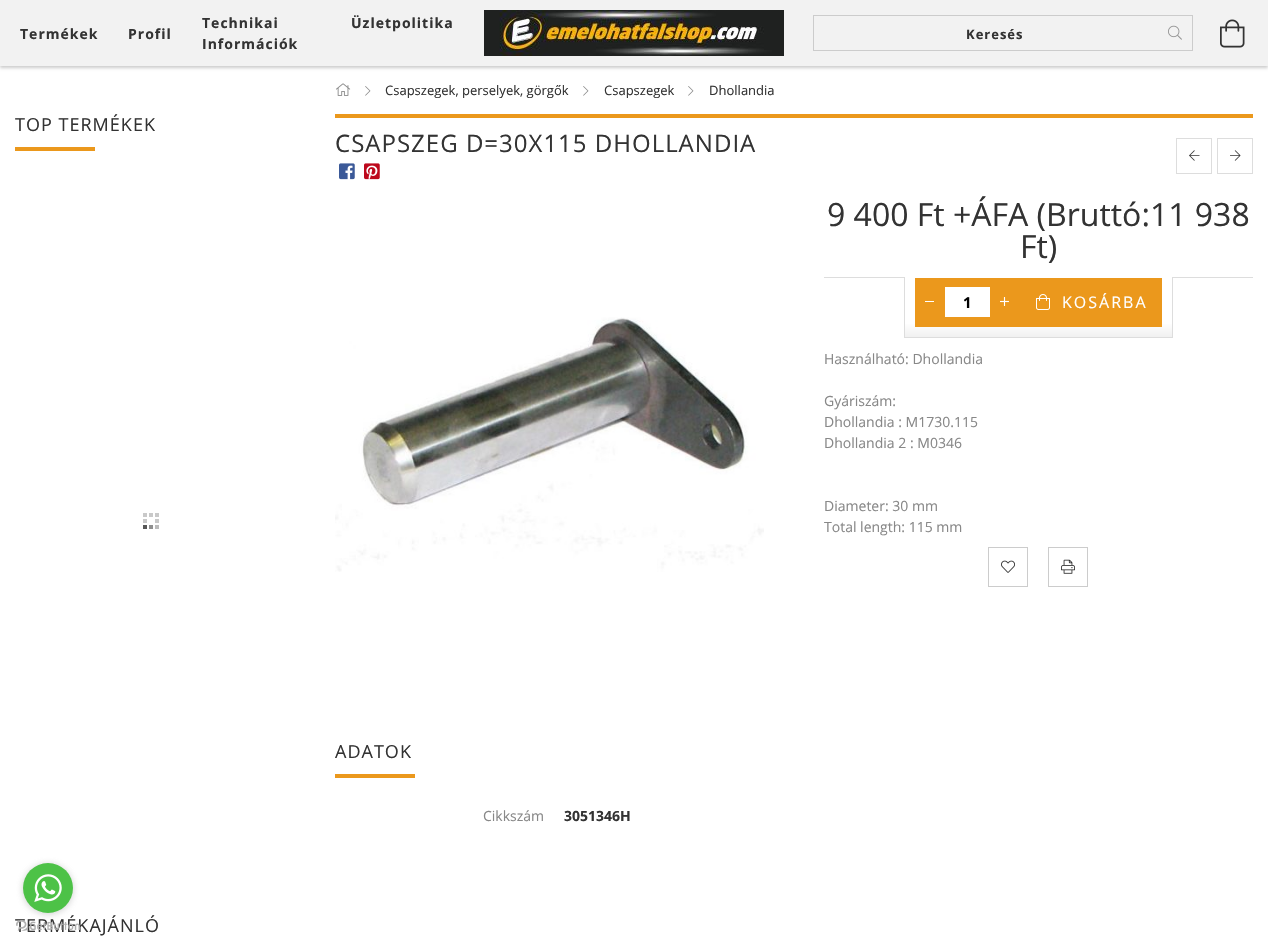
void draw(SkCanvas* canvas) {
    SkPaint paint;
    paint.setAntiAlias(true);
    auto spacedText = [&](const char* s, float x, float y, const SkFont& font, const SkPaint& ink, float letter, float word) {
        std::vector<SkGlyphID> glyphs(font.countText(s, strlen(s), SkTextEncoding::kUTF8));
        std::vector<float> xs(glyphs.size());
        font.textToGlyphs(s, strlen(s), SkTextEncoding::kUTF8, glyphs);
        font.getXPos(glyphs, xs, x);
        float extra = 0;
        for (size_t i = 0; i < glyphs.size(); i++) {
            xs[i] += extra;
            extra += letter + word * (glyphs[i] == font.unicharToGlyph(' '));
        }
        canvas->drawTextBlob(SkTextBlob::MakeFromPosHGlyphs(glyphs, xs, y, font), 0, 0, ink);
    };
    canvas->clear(0xFFFFFFFF);
    paint.setColor(0x33000000);
    paint.setMaskFilter(SkMaskFilter::MakeBlur(kNormal_SkBlurStyle, 1.5f));
    canvas->drawRect(SkRect::MakeXYWH(0, 2, 1268, 66), paint);
    paint.setMaskFilter(nullptr);
    paint.setColor(0xFFF2F2F2);
    canvas->drawRect(SkRect::MakeXYWH(0, 0, 1268, 66), paint);
    SkFont font1(fontMgr->matchFamilyStyle("Open Sans", SkFontStyle::Bold()), 14);
    font1.setSubpixel(true);
    paint.setColor(0xFF333333);
    spacedText("Termékek", 20, 39, font1, paint, 1, 0);
    spacedText("Profil", 128, 39, font1, paint, 1, 0);
    spacedText("Technikai", 202, 28, font1, paint, 1, 0);
    spacedText("Információk", 202, 49, font1, paint, 1, 0);
    spacedText("Üzletpolitika", 351, 28, font1, paint, 1, 0);
    canvas->drawImageRect(SkImages::DeferredFromEncodedData(SkData::MakeFromFileName("img1.png")), SkRect::MakeXYWH(484, 10, 300, 46), SkSamplingOptions());
    paint.setStyle(SkPaint::kStroke_Style);
    paint.setStrokeWidth(1);
    paint.setColor(0xFFCCCCCC);
    canvas->drawRect(SkRect::MakeXYWH(813.5f, 15.5f, 379, 35), paint);
    SkFont font2(fontMgr->matchFamilyStyle("Open Sans", SkFontStyle::Bold()), 13);
    font2.setSubpixel(true);
    paint.setStyle(SkPaint::kFill_Style);
    paint.setColor(0xFF333333);
    spacedText("Keresés", 966, 39, font2, paint, 1, 0);
    canvas->drawImageRect(SkImages::DeferredFromEncodedData(SkData::MakeFromFileName("img2.png")), SkRect::MakeXYWH(1168, 25, 14, 15), SkSamplingOptions());
    canvas->drawImageRect(SkImages::DeferredFromEncodedData(SkData::MakeFromFileName("img3.png")), SkRect::MakeXYWH(1220, 19, 25, 29), SkSamplingOptions());
    SkFont font3(fontMgr->matchFamilyStyle("Open Sans", SkFontStyle::Normal()), 18);
    font3.setSubpixel(true);
    spacedText("TOP TERMÉKEK", 15, 131, font3, paint, 1, 0);
    paint.setColor(0xFFEB981C);
    canvas->drawRect(SkRect::MakeXYWH(15, 147, 80, 4), paint);
    canvas->drawImageRect(SkImages::DeferredFromEncodedData(SkData::MakeFromFileName("img4.png")), SkRect::MakeXYWH(143, 513, 16, 16), SkSamplingOptions());
    paint.setColor(0xFF333333);
    spacedText("TERMÉKAJÁNLÓ", 15, 932, font3, paint, 1, 0);
    canvas->drawImageRect(SkImages::DeferredFromEncodedData(SkData::MakeFromFileName("img5.png")), SkRect::MakeXYWH(336, 83, 15, 13), SkSamplingOptions());
    canvas->drawImageRect(SkImages::DeferredFromEncodedData(SkData::MakeFromFileName("img6.png")), SkRect::MakeXYWH(365, 86, 6, 10), SkSamplingOptions());
    SkFont font4(fontMgr->matchFamilyStyle("Open Sans", SkFontStyle::Normal()), 13);
    font4.setSubpixel(true);
    canvas->drawString("Csapszegek, perselyek, görgők", 385, 95, font4, paint);
    canvas->drawImageRect(SkImages::DeferredFromEncodedData(SkData::MakeFromFileName("img6.png")), SkRect::MakeXYWH(583, 86, 6, 10), SkSamplingOptions());
    canvas->drawString("Csapszegek", 604, 95, font4, paint);
    canvas->drawImageRect(SkImages::DeferredFromEncodedData(SkData::MakeFromFileName("img6.png")), SkRect::MakeXYWH(688, 86, 6, 10), SkSamplingOptions());
    canvas->drawString("Dhollandia", 709, 95, font4, paint);
    paint.setColor(0xFFEB981C);
    canvas->drawRect(SkRect::MakeXYWH(335, 114, 918, 4), paint);
    SkFont font5(fontMgr->matchFamilyStyle("Open Sans", SkFontStyle::Normal()), 24);
    font5.setSubpixel(true);
    paint.setColor(0xFF333333);
    spacedText("CSAPSZEG D=30X115 DHOLLANDIA", 335, 152, font5, paint, 1, 0);
    canvas->drawImageRect(SkImages::DeferredFromEncodedData(SkData::MakeFromFileName("img7.png")), SkRect::MakeXYWH(339, 163, 16, 17), SkSamplingOptions());
    canvas->drawImageRect(SkImages::DeferredFromEncodedData(SkData::MakeFromFileName("img8.png")), SkRect::MakeXYWH(364, 163, 16, 17), SkSamplingOptions());
    paint.setStyle(SkPaint::kStroke_Style);
    paint.setColor(0xFFDDDDDD);
    canvas->drawRect(SkRect::MakeXYWH(1176.5f, 138.5f, 35, 35), paint);
    canvas->drawImageRect(SkImages::DeferredFromEncodedData(SkData::MakeFromFileName("img9.png")), SkRect::MakeXYWH(1189, 150, 11, 11), SkSamplingOptions());
    canvas->drawRect(SkRect::MakeXYWH(1217.5f, 138.5f, 35, 35), paint);
    canvas->drawImageRect(SkImages::DeferredFromEncodedData(SkData::MakeFromFileName("img10.png")), SkRect::MakeXYWH(1230, 150, 11, 11), SkSamplingOptions());
    canvas->drawImageRect(SkImages::DeferredFromEncodedData(SkData::MakeFromFileName("img11.png")), SkRect::MakeXYWH(335, 317, 429, 255), SkSamplingOptions());
    SkFont font6(fontMgr->matchFamilyStyle("Open Sans", SkFontStyle::Normal()), 32);
    font6.setSubpixel(true);
    paint.setStyle(SkPaint::kFill_Style);
    paint.setColor(0xFF333333);
    canvas->drawString("9 400 Ft +ÁFA (Bruttó:11 938", 827, 226, font6, paint);
    canvas->drawString("Ft)", 1020, 258, font6, paint);
    paint.setColor(0xFFDDDDDD);
    canvas->drawRect(SkRect::MakeXYWH(824, 277, 429, 1), paint);
    {
        const SkColor colors[] = {0xFFF1F1F1, 0x00F1F1F1, 0x00FFFFFF};
        const float stops[] = {0, 0.25f, 1};
        const SkPoint ends[] = {{1039, 337}, {1039, 277}};
        paint.setShader(SkGradientShader::MakeLinear(ends, colors, stops, 3, SkTileMode::kClamp));
        paint.setAlpha(255);
    }
    canvas->drawRect(SkRect::MakeXYWH(905, 324, 267, 13), paint);
    paint.setShader(nullptr);
    paint.setColor(0xFFDDDDDD);
    canvas->drawRect(SkRect::MakeXYWH(1172, 277, 1, 61), paint);
    canvas->drawRect(SkRect::MakeXYWH(904, 337, 269, 1), paint);
    canvas->drawRect(SkRect::MakeXYWH(904, 277, 1, 61), paint);
    paint.setColor(0xFFFFFFFF);
    canvas->drawRect(SkRect::MakeXYWH(905, 277, 267, 1), paint);
    paint.setColor(0xFFEB981C);
    canvas->drawRect(SkRect::MakeXYWH(915, 278, 247, 49), paint);
    paint.setColor(0xFFFFFFFF);
    canvas->drawRect(SkRect::MakeXYWH(925, 301, 9, 1), paint);
    canvas->drawRect(SkRect::MakeXYWH(945, 287, 45, 30), paint);
    SkFont font7(fontMgr->matchFamilyStyle("Open Sans", SkFontStyle::Bold()), 15);
    font7.setSubpixel(true);
    paint.setColor(0xFF000000);
    canvas->drawString("1", 963, 308, font7, paint);
    canvas->drawImageRect(SkImages::DeferredFromEncodedData(SkData::MakeFromFileName("img12.png")), SkRect::MakeXYWH(1000, 297, 9, 9), SkSamplingOptions());
    canvas->drawImageRect(SkImages::DeferredFromEncodedData(SkData::MakeFromFileName("img13.png")), SkRect::MakeXYWH(1036, 294, 14, 16), SkSamplingOptions());
    SkFont font8(fontMgr->matchFamilyStyle("Open Sans", SkFontStyle::Normal()), 16);
    font8.setSubpixel(true);
    paint.setColor(0xFFFFFFFF);
    spacedText("KOSÁRBA", 1062, 308, font8, paint, 2, 0);
    SkFont font9(fontMgr->matchFamilyStyle("Open Sans", SkFontStyle::Normal()), 14);
    font9.setSubpixel(true);
    paint.setColor(0xFF888888);
    canvas->drawString("Használható: Dhollandia", 824, 364, font9, paint);
    canvas->drawString("Gyáriszám:", 824, 406, font9, paint);
    canvas->drawString("Dhollandia : M1730.115", 824, 427, font9, paint);
    canvas->drawString("Dhollandia 2 : M0346", 824, 448, font9, paint);
    canvas->drawString("Diameter: 30 mm", 824, 511, font9, paint);
    canvas->drawString("Total length: 115 mm", 824, 532, font9, paint);
    paint.setStyle(SkPaint::kStroke_Style);
    paint.setColor(0xFFCCCCCC);
    canvas->drawRect(SkRect::MakeXYWH(988.5f, 547.5f, 39, 39), paint);
    canvas->drawImageRect(SkImages::DeferredFromEncodedData(SkData::MakeFromFileName("img14.png")), SkRect::MakeXYWH(1001, 560, 14, 13), SkSamplingOptions());
    canvas->drawRect(SkRect::MakeXYWH(1048.5f, 547.5f, 39, 39), paint);
    canvas->drawImageRect(SkImages::DeferredFromEncodedData(SkData::MakeFromFileName("img15.png")), SkRect::MakeXYWH(1061, 559, 14, 15), SkSamplingOptions());
    paint.setStyle(SkPaint::kFill_Style);
    paint.setColor(0xFF333333);
    spacedText("ADATOK", 335, 758, font3, paint, 1, 0);
    paint.setColor(0xFFEB981C);
    canvas->drawRect(SkRect::MakeXYWH(335, 774, 80, 4), paint);
    paint.setColor(0xFF888888);
    canvas->drawString("Cikkszám", 483, 821, font9, paint);
    paint.setColor(0xFF333333);
    canvas->drawString("3051346H", 564, 821, font1, paint);
    canvas->drawImageRect(SkImages::DeferredFromEncodedData(SkData::MakeFromFileName("img17.png")), SkRect::MakeXYWH(16, 920, 64, 11), SkSamplingOptions());
    paint.setColor(0x66888888);
    paint.setMaskFilter(SkMaskFilter::MakeBlur(kNormal_SkBlurStyle, 3.5f));
    canvas->drawRoundRect(SkRect::MakeXYWH(23, 864, 50, 50), 25, 25, paint);
    paint.setMaskFilter(nullptr);
    paint.setColor(0xFF4DC247);
    canvas->drawCircle(48, 888, 25, paint);
    canvas->drawImageRect(SkImages::DeferredFromEncodedData(SkData::MakeFromFileName("img16.png")), SkRect::MakeXYWH(34, 874, 28, 28), SkSamplingOptions());
}
